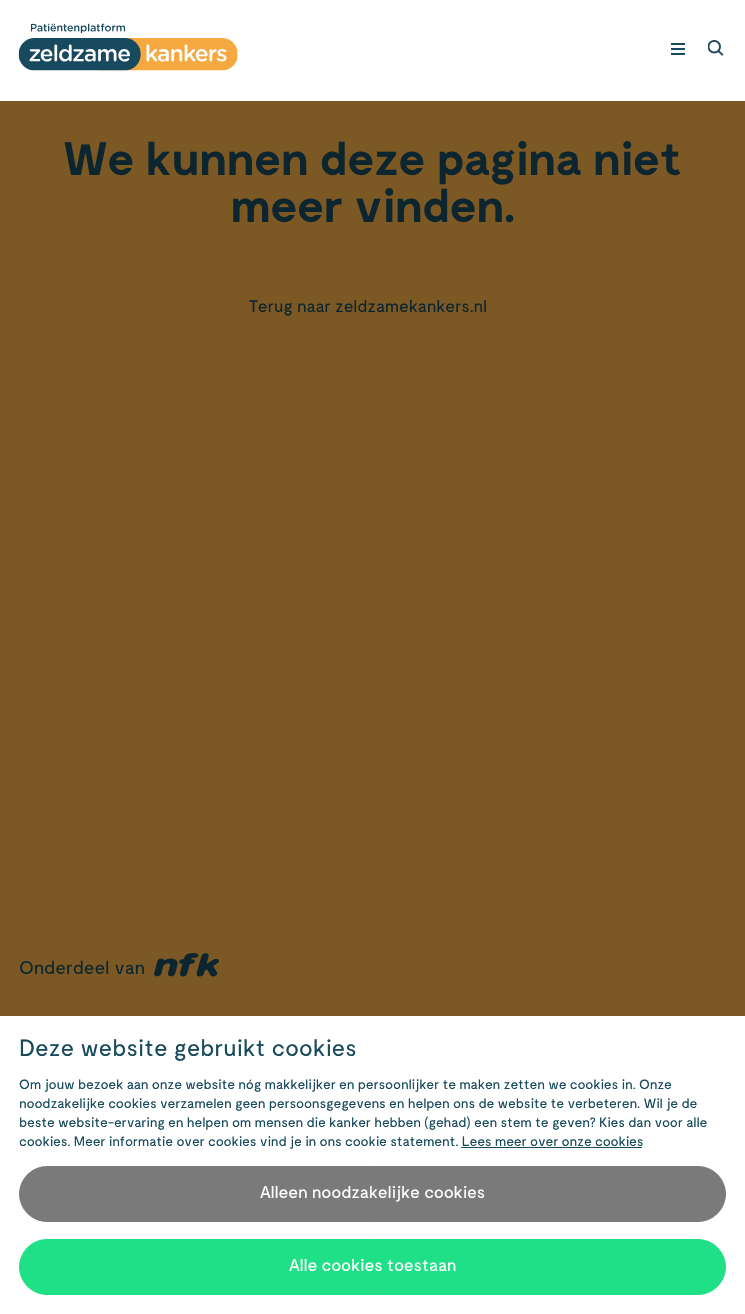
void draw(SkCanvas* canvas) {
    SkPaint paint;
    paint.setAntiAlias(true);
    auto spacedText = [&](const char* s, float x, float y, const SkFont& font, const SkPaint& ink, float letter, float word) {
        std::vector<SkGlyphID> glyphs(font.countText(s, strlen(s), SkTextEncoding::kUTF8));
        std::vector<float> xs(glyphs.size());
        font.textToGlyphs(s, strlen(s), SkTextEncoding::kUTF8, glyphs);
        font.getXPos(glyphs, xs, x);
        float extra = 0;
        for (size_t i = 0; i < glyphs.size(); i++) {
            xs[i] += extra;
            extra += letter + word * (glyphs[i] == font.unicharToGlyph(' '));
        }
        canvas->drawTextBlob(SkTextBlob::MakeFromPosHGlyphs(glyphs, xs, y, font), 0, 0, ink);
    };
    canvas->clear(0xFF7C5824);
    paint.setColor(0xFFFFFFFF);
    canvas->drawRect(SkRect::MakeXYWH(0, 0, 745, 101), paint);
    canvas->drawImageRect(SkImages::DeferredFromEncodedData(SkData::MakeFromFileName("img1.png")), SkRect::MakeXYWH(18, 23, 220, 48), SkSamplingOptions());
    paint.setColor(0xFF174A5E);
    canvas->drawRect(SkRect::MakeXYWH(671, 43, 14, 2), paint);
    canvas->drawRect(SkRect::MakeXYWH(671, 48, 14, 2), paint);
    canvas->drawRect(SkRect::MakeXYWH(671, 53, 14, 2), paint);
    canvas->drawImageRect(SkImages::DeferredFromEncodedData(SkData::MakeFromFileName("img2.png")), SkRect::MakeXYWH(708, 40, 16, 16), SkSamplingOptions());
    SkFont font1(fontMgr->matchFamilyStyle("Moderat", SkFontStyle::Bold()), 46.75f);
    font1.setSubpixel(true);
    paint.setColor(0xFF0C252E);
    spacedText("We kunnen deze pagina niet", 63, 175, font1, paint, -1, 0);
    spacedText("meer vinden.", 230, 222, font1, paint, -1, 0);
    SkFont font2(fontMgr->matchFamilyStyle("Moderat", SkFontStyle::Normal()), 16.9f);
    font2.setSubpixel(true);
    spacedText("Terug naar zeldzamekankers.nl", 249, 312, font2, paint, -0.2f, 0);
    SkFont font3(fontMgr->matchFamilyStyle("Moderat", SkFontStyle::Normal()), 18.5f);
    font3.setSubpixel(true);
    spacedText("Onderdeel van", 19, 974, font3, paint, -0.2f, 0);
    canvas->drawImageRect(SkImages::DeferredFromEncodedData(SkData::MakeFromFileName("img3.png")), SkRect::MakeXYWH(154, 953, 65, 24), SkSamplingOptions());
    paint.setColor(0xFFFFFFFF);
    canvas->drawRect(SkRect::MakeXYWH(0, 1016, 745, 298), paint);
    SkFont font4(fontMgr->matchFamilyStyle("Moderat", SkFontStyle::Normal()), 23.5f);
    font4.setSubpixel(true);
    paint.setColor(0xFF174A5C);
    spacedText("Deze website gebruikt cookies", 19, 1056, font4, paint, -0.2f, 0);
    SkFont font5(fontMgr->matchFamilyStyle("Moderat", SkFontStyle::Normal()), 13.5f);
    font5.setSubpixel(true);
    spacedText("Om jouw bezoek aan onze website nóg makkelijker en persoonlijker te maken zetten we cookies in. Onze", 19, 1089, font5, paint, -0.2f, 0);
    spacedText("noodzakelijke cookies verzamelen geen persoonsgegevens en helpen ons de website te verbeteren. Wil je de", 19, 1108, font5, paint, -0.2f, 0);
    spacedText("beste website-ervaring en helpen om mensen die kanker hebben (gehad) een stem te geven? Kies dan voor alle", 19, 1127, font5, paint, -0.2f, 0);
    spacedText("cookies. Meer informatie over cookies vind je in ons cookie statement. Lees meer over onze cookies", 19, 1146, font5, paint, -0.2f, 0);
    canvas->drawRect(SkRect::MakeXYWH(461, 1147, 181, 1), paint);
    paint.setColor(0xFF7A7A7A);
    canvas->drawRoundRect(SkRect::MakeXYWH(19.5f, 1166.5f, 706, 55), 27.5f, 27.5f, paint);
    paint.setStyle(SkPaint::kStroke_Style);
    paint.setStrokeWidth(1);
    canvas->drawRoundRect(SkRect::MakeXYWH(19.5f, 1166.5f, 706, 55), 27.5f, 27.5f, paint);
    paint.setStyle(SkPaint::kFill_Style);
    paint.setColor(0xFFFFFFFF);
    spacedText("Alleen noodzakelijke cookies", 260, 1198, font2, paint, -0.2f, 0);
    paint.setColor(0xFF1FE086);
    canvas->drawRoundRect(SkRect::MakeXYWH(19.5f, 1239.5f, 706, 55), 27.5f, 27.5f, paint);
    paint.setStyle(SkPaint::kStroke_Style);
    canvas->drawRoundRect(SkRect::MakeXYWH(19.5f, 1239.5f, 706, 55), 27.5f, 27.5f, paint);
    paint.setStyle(SkPaint::kFill_Style);
    paint.setColor(0xFFFFFFFF);
    spacedText("Alle cookies toestaan", 289, 1271, font2, paint, -0.2f, 0);
}
